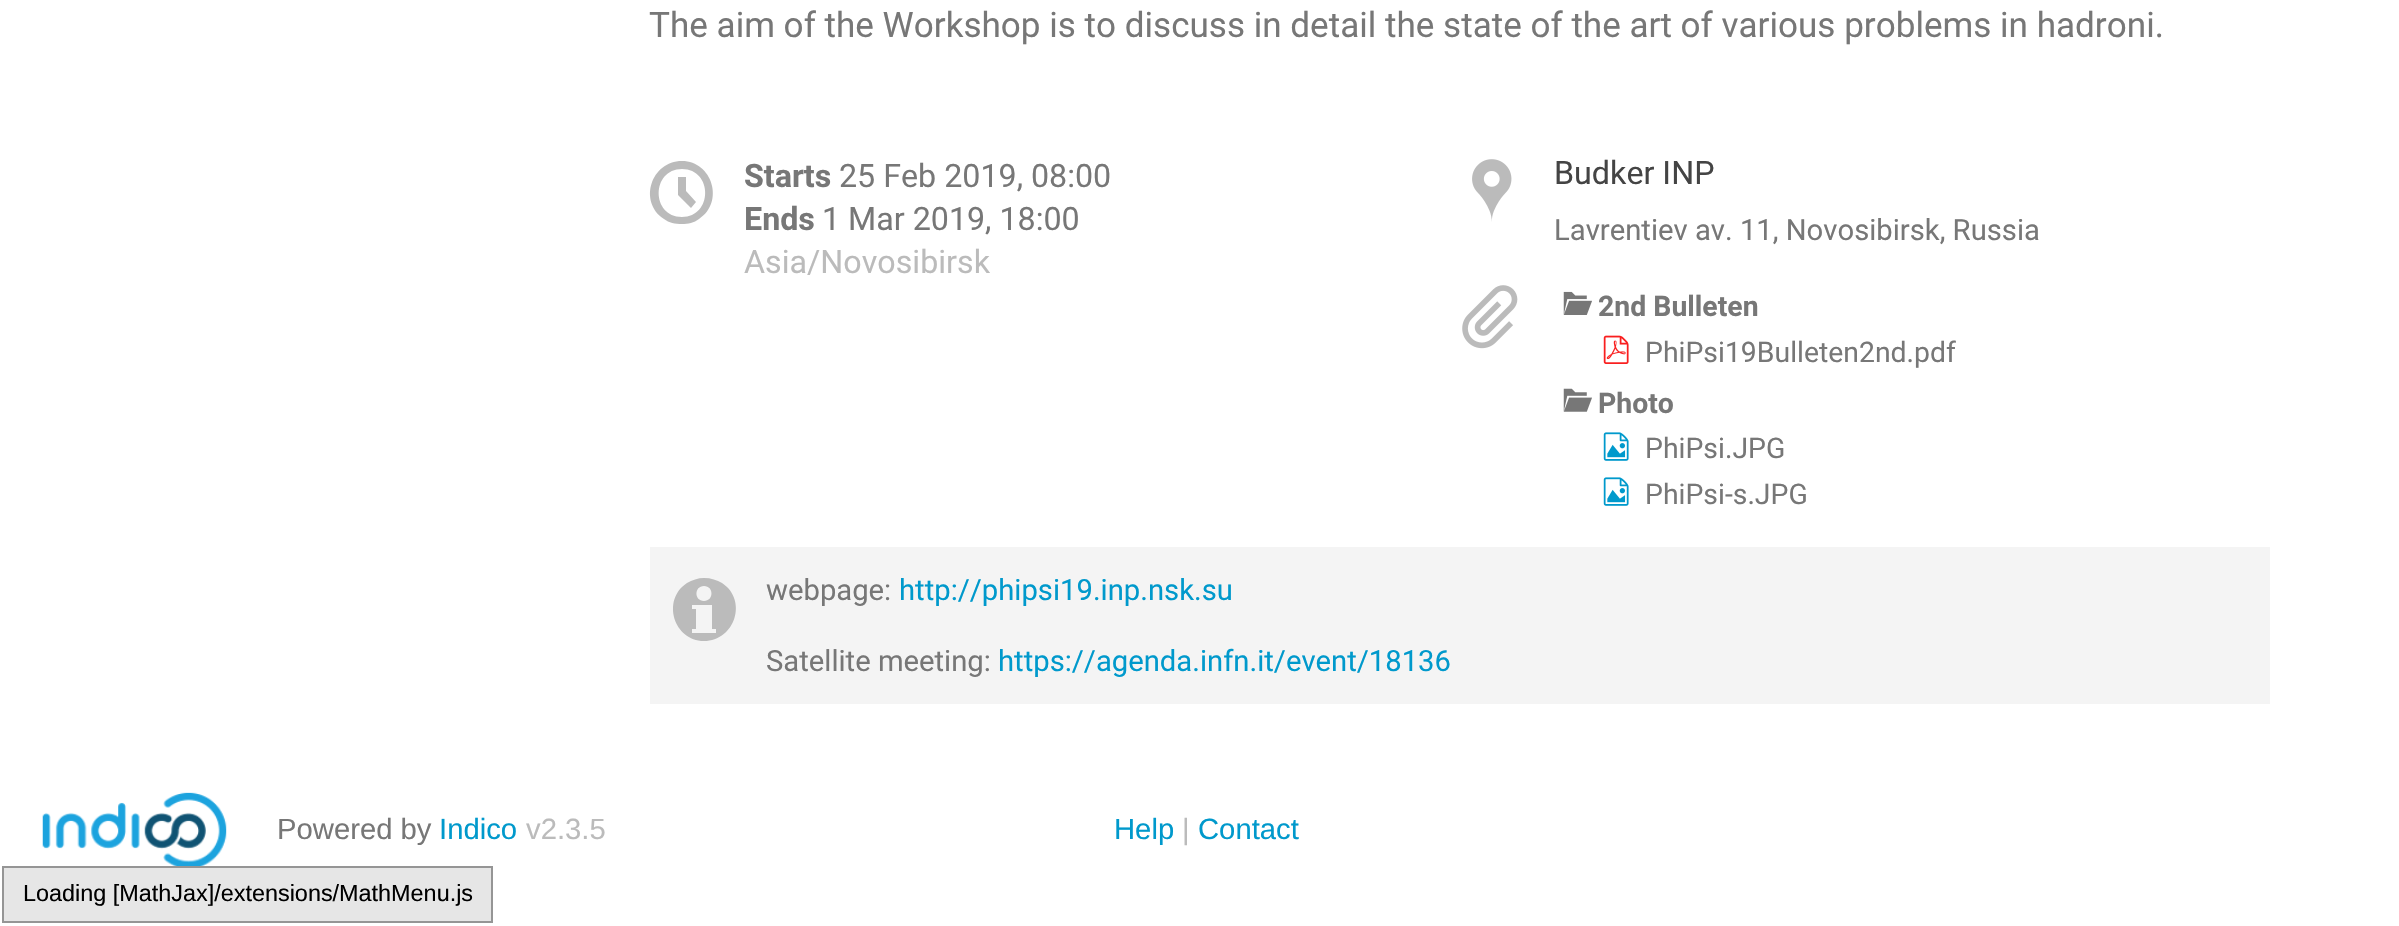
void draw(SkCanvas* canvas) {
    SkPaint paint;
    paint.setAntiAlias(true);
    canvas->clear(0xFFFFFFFF);
    SkFont font1(fontMgr->matchFamilyStyle("Roboto", SkFontStyle::Normal()), 35.1f);
    font1.setSubpixel(true);
    paint.setColor(0xFF777777);
    canvas->drawString("The aim of the Workshop is to discuss in detail the state of the art of various problems in hadroni.", 649, 37, font1, paint);
    paint.setColor(0xFFBBBBBB);
    canvas->drawPath(SkPathBuilder().moveTo(691, 208).lineTo(678, 195).lineTo(678, 177).lineTo(686, 177).lineTo(686, 191).lineTo(696, 202).close().moveTo(682, 161).cubicTo(651, 161, 638, 202, 664, 219).cubicTo(669, 223, 675, 224, 682, 224).cubicTo(688, 224, 694, 223, 699, 219).cubicTo(725, 202, 712, 161, 682, 161).close().moveTo(682, 217).cubicTo(651, 217, 651, 169, 682, 169).cubicTo(713, 169, 713, 217, 682, 217).close().detach(), paint);
    SkFont font2(fontMgr->matchFamilyStyle("Roboto", SkFontStyle::Bold()), 32.25f);
    font2.setSubpixel(true);
    paint.setColor(0xFF777777);
    canvas->drawString("Starts", 744, 187, font2, paint);
    SkFont font3(fontMgr->matchFamilyStyle("Roboto", SkFontStyle::Normal()), 32.25f);
    font3.setSubpixel(true);
    canvas->drawString("25 Feb 2019, 08:00", 839, 187, font3, paint);
    canvas->drawString("Ends", 744, 230, font2, paint);
    canvas->drawString("1 Mar 2019, 18:00", 822, 230, font3, paint);
    paint.setColor(0xFFBBBBBB);
    canvas->drawString("Asia/Novosibirsk", 744, 273, font3, paint);
    canvas->drawImageRect(SkImages::DeferredFromEncodedData(SkData::MakeFromFileName("img1.png")), SkRect::MakeXYWH(1472, 159, 40, 63), SkSamplingOptions());
    paint.setColor(0xFF444444);
    canvas->drawString("Budker INP", 1554, 184, font3, paint);
    SkFont font4(fontMgr->matchFamilyStyle("Roboto", SkFontStyle::Normal()), 29.25f);
    font4.setSubpixel(true);
    paint.setColor(0xFF777777);
    canvas->drawString("Lavrentiev av. 11, Novosibirsk, Russia", 1554, 240, font4, paint);
    canvas->drawImageRect(SkImages::DeferredFromEncodedData(SkData::MakeFromFileName("img2.png")), SkRect::MakeXYWH(1462, 285, 56, 64), SkSamplingOptions());
    canvas->drawImageRect(SkImages::DeferredFromEncodedData(SkData::MakeFromFileName("img3.png")), SkRect::MakeXYWH(1563, 291, 29, 24), SkSamplingOptions());
    SkFont font5(fontMgr->matchFamilyStyle("Roboto", SkFontStyle::Bold()), 28.4f);
    font5.setSubpixel(true);
    canvas->drawString("2nd Bulleten", 1598, 316, font5, paint);
    canvas->drawImageRect(SkImages::DeferredFromEncodedData(SkData::MakeFromFileName("img4.png")), SkRect::MakeXYWH(1603, 335, 26, 29), SkSamplingOptions());
    SkFont font6(fontMgr->matchFamilyStyle("Roboto", SkFontStyle::Normal()), 28.4f);
    font6.setSubpixel(true);
    canvas->drawString("PhiPsi19Bulleten2nd.pdf", 1645, 362, font6, paint);
    canvas->drawImageRect(SkImages::DeferredFromEncodedData(SkData::MakeFromFileName("img5.png")), SkRect::MakeXYWH(1563, 388, 29, 24), SkSamplingOptions());
    canvas->drawString("Photo", 1598, 413, font5, paint);
    canvas->drawImageRect(SkImages::DeferredFromEncodedData(SkData::MakeFromFileName("img6.png")), SkRect::MakeXYWH(1603, 432, 26, 29), SkSamplingOptions());
    canvas->drawString("PhiPsi.JPG", 1645, 458, font6, paint);
    canvas->drawImageRect(SkImages::DeferredFromEncodedData(SkData::MakeFromFileName("img6.png")), SkRect::MakeXYWH(1603, 477, 26, 29), SkSamplingOptions());
    canvas->drawString("PhiPsi-s.JPG", 1645, 504, font6, paint);
    paint.setColor(0xFFF4F4F4);
    canvas->drawRect(SkRect::MakeXYWH(650, 547, 1620, 157), paint);
    paint.setColor(0xFFBBBBBB);
    canvas->drawPath(SkPathBuilder().moveTo(704, 578).cubicTo(698, 578, 692, 580, 687, 583).cubicTo(661, 600, 674, 641, 704, 641).cubicTo(735, 641, 748, 600, 722, 583).cubicTo(717, 580, 711, 578, 704, 578).close().moveTo(704, 586).cubicTo(714, 586, 714, 601, 704, 601).cubicTo(694, 601, 694, 586, 704, 586).close().moveTo(716, 633).lineTo(692, 633).lineTo(692, 629).lineTo(696, 629).lineTo(696, 609).lineTo(692, 609).lineTo(692, 605).lineTo(712, 605).lineTo(712, 629).lineTo(716, 629).close().detach(), paint);
    paint.setColor(0xFF777777);
    canvas->drawString("webpage:", 766, 600, font4, paint);
    paint.setColor(0xFF0099CC);
    canvas->drawString("http://phipsi19.inp.nsk.su", 899, 600, font4, paint);
    paint.setColor(0xFF777777);
    canvas->drawString("Satellite meeting:", 766, 671, font4, paint);
    paint.setColor(0xFF0099CC);
    canvas->drawString("https://agenda.infn.it/event/18136", 998, 671, font4, paint);
    canvas->drawImageRect(SkImages::DeferredFromEncodedData(SkData::MakeFromFileName("img7.png")), SkRect::MakeXYWH(42, 792, 185, 74), SkSamplingOptions());
    SkFont font7(fontMgr->matchFamilyStyle("Liberation Sans", SkFontStyle::Normal()), 29.25f);
    font7.setSubpixel(true);
    paint.setColor(0xFF777777);
    canvas->drawString("Powered by", 277, 839, font7, paint);
    paint.setColor(0xFF0099CC);
    canvas->drawString("Indico", 439, 839, font7, paint);
    paint.setColor(0xFFBBBBBB);
    canvas->drawString("v2.3.5", 526, 839, font7, paint);
    paint.setColor(0xFF0099CC);
    canvas->drawString("Help", 1114, 839, font7, paint);
    paint.setColor(0xFFBBBBBB);
    canvas->drawString("|", 1182, 839, font7, paint);
    paint.setColor(0xFF0099CC);
    canvas->drawString("Contact", 1198, 839, font7, paint);
    paint.setColor(0xFFE6E6E6);
    canvas->drawRect(SkRect::MakeXYWH(3, 867, 489, 55), paint);
    paint.setStyle(SkPaint::kStroke_Style);
    paint.setStrokeWidth(2);
    paint.setColor(0xFF959595);
    canvas->drawRect(SkRect::MakeXYWH(3, 867, 489, 55), paint);
    SkFont font8(fontMgr->matchFamilyStyle("Liberation Sans", SkFontStyle::Normal()), 23.4f);
    font8.setSubpixel(true);
    paint.setStyle(SkPaint::kFill_Style);
    paint.setColor(0xFF000000);
    canvas->drawString("Loading [MathJax]/extensions/MathMenu.js", 23, 901, font8, paint);
}
